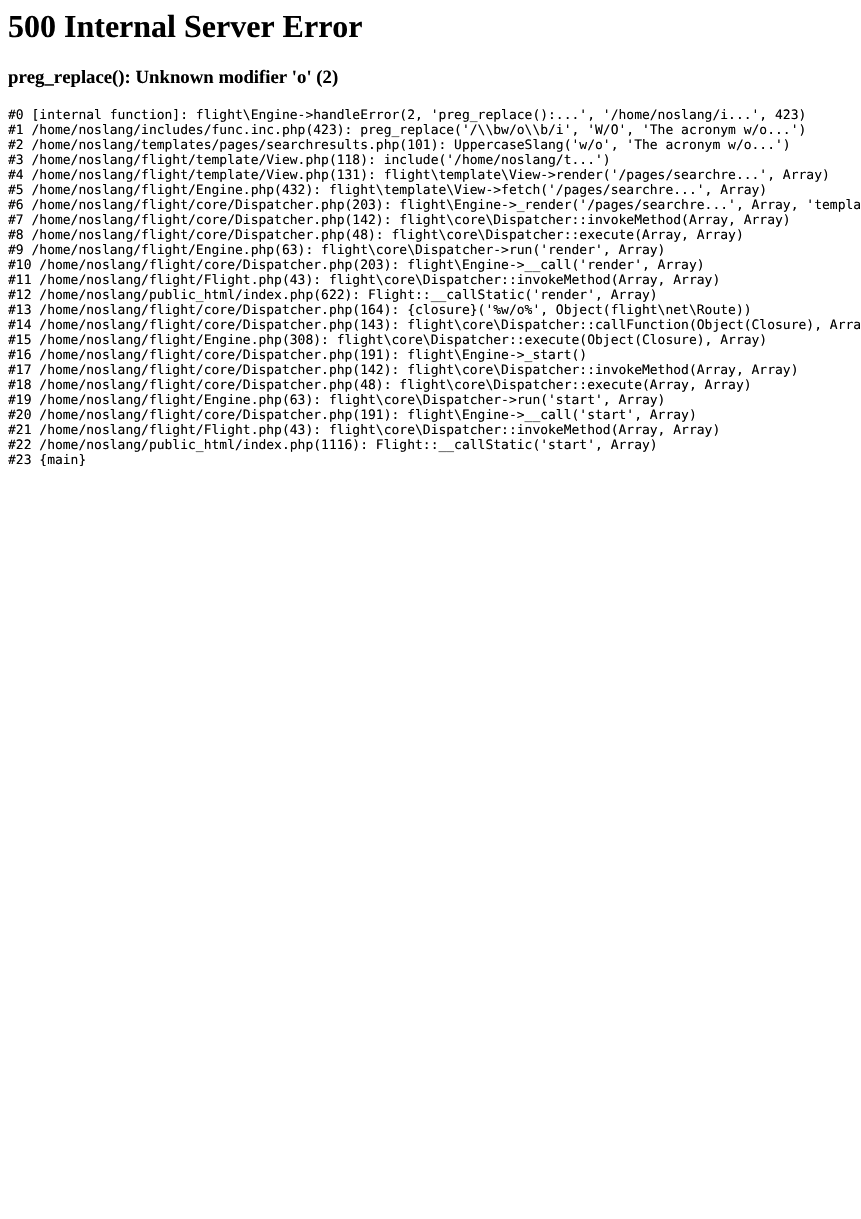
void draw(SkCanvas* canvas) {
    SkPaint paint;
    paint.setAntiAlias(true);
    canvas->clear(0xFFFFFFFF);
    SkFont font1(fontMgr->matchFamilyStyle("Liberation Serif", SkFontStyle::Bold()), 32);
    font1.setSubpixel(true);
    paint.setColor(0xFF000000);
    canvas->drawString("500 Internal Server Error", 8, 37, font1, paint);
    SkFont font2(fontMgr->matchFamilyStyle("Liberation Serif", SkFontStyle::Bold()), 18.75f);
    font2.setSubpixel(true);
    canvas->drawString("preg_replace(): Unknown modifier 'o' (2)", 8, 83, font2, paint);
    SkFont font3(fontMgr->matchFamilyStyle("DejaVu Sans Mono", SkFontStyle::Normal()), 13);
    font3.setSubpixel(true);
    canvas->drawString("#0 [internal function]: flight\\Engine->handleError(2, 'preg_replace():...', '/home/noslang/i...', 423)", 8, 119, font3, paint);
    canvas->drawString("#1 /home/noslang/includes/func.inc.php(423): preg_replace('/\\\\bw/o\\\\b/i', 'W/O', 'The acronym w/o...')", 8, 134, font3, paint);
    canvas->drawString("#2 /home/noslang/templates/pages/searchresults.php(101): UppercaseSlang('w/o', 'The acronym w/o...')", 8, 149, font3, paint);
    canvas->drawString("#3 /home/noslang/flight/template/View.php(118): include('/home/noslang/t...')", 8, 164, font3, paint);
    canvas->drawString("#4 /home/noslang/flight/template/View.php(131): flight\\template\\View->render('/pages/searchre...', Array)", 8, 179, font3, paint);
    canvas->drawString("#5 /home/noslang/flight/Engine.php(432): flight\\template\\View->fetch('/pages/searchre...', Array)", 8, 194, font3, paint);
    canvas->drawString("#6 /home/noslang/flight/core/Dispatcher.php(203): flight\\Engine->_render('/pages/searchre...', Array, 'templa", 8, 209, font3, paint);
    canvas->drawString("#7 /home/noslang/flight/core/Dispatcher.php(142): flight\\core\\Dispatcher::invokeMethod(Array, Array)", 8, 224, font3, paint);
    canvas->drawString("#8 /home/noslang/flight/core/Dispatcher.php(48): flight\\core\\Dispatcher::execute(Array, Array)", 8, 239, font3, paint);
    canvas->drawString("#9 /home/noslang/flight/Engine.php(63): flight\\core\\Dispatcher->run('render', Array)", 8, 254, font3, paint);
    canvas->drawString("#10 /home/noslang/flight/core/Dispatcher.php(203): flight\\Engine->__call('render', Array)", 8, 269, font3, paint);
    canvas->drawString("#11 /home/noslang/flight/Flight.php(43): flight\\core\\Dispatcher::invokeMethod(Array, Array)", 8, 284, font3, paint);
    canvas->drawString("#12 /home/noslang/public_html/index.php(622): Flight::__callStatic('render', Array)", 8, 299, font3, paint);
    canvas->drawString("#13 /home/noslang/flight/core/Dispatcher.php(164): {closure}('%w/o%', Object(flight\\net\\Route))", 8, 314, font3, paint);
    canvas->drawString("#14 /home/noslang/flight/core/Dispatcher.php(143): flight\\core\\Dispatcher::callFunction(Object(Closure), Arra", 8, 329, font3, paint);
    canvas->drawString("#15 /home/noslang/flight/Engine.php(308): flight\\core\\Dispatcher::execute(Object(Closure), Array)", 8, 344, font3, paint);
    canvas->drawString("#16 /home/noslang/flight/core/Dispatcher.php(191): flight\\Engine->_start()", 8, 359, font3, paint);
    canvas->drawString("#17 /home/noslang/flight/core/Dispatcher.php(142): flight\\core\\Dispatcher::invokeMethod(Array, Array)", 8, 374, font3, paint);
    canvas->drawString("#18 /home/noslang/flight/core/Dispatcher.php(48): flight\\core\\Dispatcher::execute(Array, Array)", 8, 389, font3, paint);
    canvas->drawString("#19 /home/noslang/flight/Engine.php(63): flight\\core\\Dispatcher->run('start', Array)", 8, 404, font3, paint);
    canvas->drawString("#20 /home/noslang/flight/core/Dispatcher.php(191): flight\\Engine->__call('start', Array)", 8, 419, font3, paint);
    canvas->drawString("#21 /home/noslang/flight/Flight.php(43): flight\\core\\Dispatcher::invokeMethod(Array, Array)", 8, 434, font3, paint);
    canvas->drawString("#22 /home/noslang/public_html/index.php(1116): Flight::__callStatic('start', Array)", 8, 449, font3, paint);
    canvas->drawString("#23 {main}", 8, 464, font3, paint);
}
